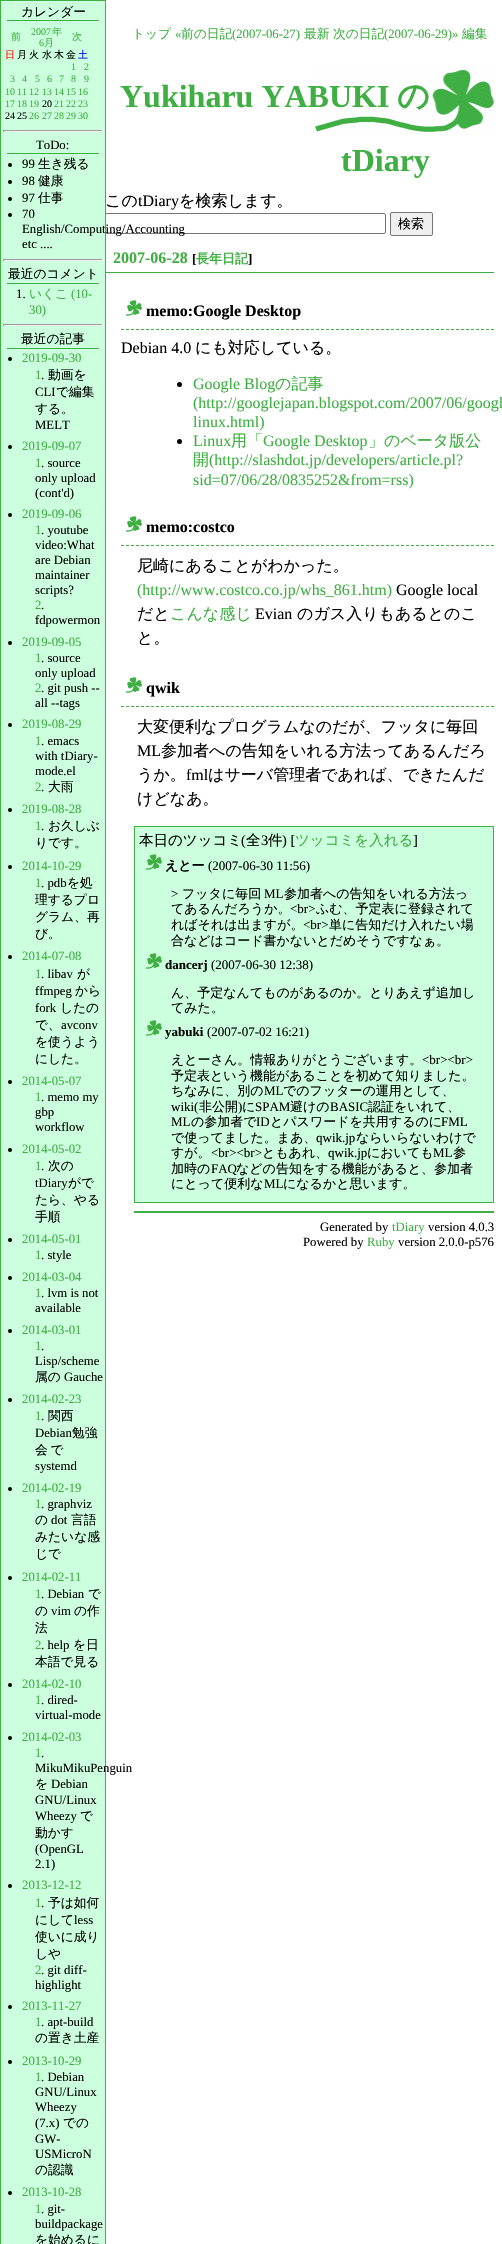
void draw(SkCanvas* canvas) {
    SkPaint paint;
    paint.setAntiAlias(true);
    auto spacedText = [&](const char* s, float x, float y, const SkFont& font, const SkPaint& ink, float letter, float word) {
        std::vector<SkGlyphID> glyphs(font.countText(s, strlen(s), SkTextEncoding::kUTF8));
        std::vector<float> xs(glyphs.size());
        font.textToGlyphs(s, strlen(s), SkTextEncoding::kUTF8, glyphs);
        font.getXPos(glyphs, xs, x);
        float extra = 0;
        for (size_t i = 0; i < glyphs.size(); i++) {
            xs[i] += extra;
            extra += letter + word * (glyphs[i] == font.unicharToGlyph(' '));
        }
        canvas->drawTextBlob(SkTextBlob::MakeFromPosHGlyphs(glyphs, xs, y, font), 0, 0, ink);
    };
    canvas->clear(0xFFFFFFFF);
    paint.setStyle(SkPaint::kStroke_Style);
    paint.setStrokeWidth(1);
    paint.setColor(0xFF767676);
    canvas->drawRoundRect(SkRect::MakeXYWH(105.5f, 213.5f, 280, 20), 1.5f, 1.5f, paint);
    paint.setStyle(SkPaint::kFill_Style);
    paint.setColor(0xFF3FAF43);
    canvas->drawRect(SkRect::MakeXYWH(105, 272, 389, 1), paint);
    paint.setColor(0xFFCCFFDD);
    canvas->drawRect(SkRect::MakeXYWH(0.5f, 0.5f, 105, 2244), paint);
    paint.setStyle(SkPaint::kStroke_Style);
    paint.setColor(0xFF3FAF43);
    canvas->drawRect(SkRect::MakeXYWH(0.5f, 0.5f, 105, 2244), paint);
    paint.setStyle(SkPaint::kFill_Style);
    canvas->drawRect(SkRect::MakeXYWH(7, 20, 92, 1), paint);
    SkFont font1(fontMgr->matchFamilyStyle("WenQuanYi Zen Hei", SkFontStyle(500, SkFontStyle::kNormal_Width, SkFontStyle::kUpright_Slant)), 12.75f);
    font1.setSubpixel(true);
    paint.setColor(0xFF000000);
    canvas->drawString("カレンダー", 21, 16, font1, paint);
    SkFont font2(fontMgr->matchFamilyStyle("WenQuanYi Zen Hei", SkFontStyle(500, SkFontStyle::kNormal_Width, SkFontStyle::kUpright_Slant)), 10);
    font2.setSubpixel(true);
    paint.setColor(0xFF3FAF43);
    canvas->drawString("前", 11, 40, font2, paint);
    SkFont font3(fontMgr->matchFamilyStyle("Liberation Serif", SkFontStyle::Normal()), 10);
    font3.setSubpixel(true);
    canvas->drawString("2007", 31, 35, font3, paint);
    canvas->drawString("年", 52, 35, font2, paint);
    canvas->drawString("6", 39, 46, font3, paint);
    canvas->drawString("月", 44, 46, font2, paint);
    canvas->drawString("次", 72, 40, font2, paint);
    paint.setColor(0xFFFF0000);
    canvas->drawString("日", 5, 58, font2, paint);
    paint.setColor(0xFF000000);
    canvas->drawString("月", 17, 58, font2, paint);
    canvas->drawString("火", 29, 58, font2, paint);
    canvas->drawString("水", 42, 58, font2, paint);
    canvas->drawString("木", 54, 58, font2, paint);
    canvas->drawString("金", 66, 58, font2, paint);
    paint.setColor(0xFF0000FF);
    canvas->drawString("土", 78, 58, font2, paint);
    paint.setColor(0xFF3FAF43);
    canvas->drawString("1", 71, 70, font3, paint);
    canvas->drawString("2", 84, 70, font3, paint);
    canvas->drawString("3", 10, 82, font3, paint);
    canvas->drawString("4", 22, 82, font3, paint);
    canvas->drawString("5", 35, 82, font3, paint);
    canvas->drawString("6", 47, 82, font3, paint);
    canvas->drawString("7", 59, 82, font3, paint);
    canvas->drawString("8", 71, 82, font3, paint);
    canvas->drawString("9", 84, 82, font3, paint);
    canvas->drawString("10", 5, 95, font3, paint);
    canvas->drawString("11", 17, 95, font3, paint);
    canvas->drawString("12", 29, 95, font3, paint);
    canvas->drawString("13", 42, 95, font3, paint);
    canvas->drawString("14", 54, 95, font3, paint);
    canvas->drawString("15", 66, 95, font3, paint);
    canvas->drawString("16", 78, 95, font3, paint);
    canvas->drawString("17", 5, 107, font3, paint);
    canvas->drawString("18", 17, 107, font3, paint);
    canvas->drawString("19", 29, 107, font3, paint);
    paint.setColor(0xFF000000);
    canvas->drawString("20", 42, 107, font3, paint);
    paint.setColor(0xFF3FAF43);
    canvas->drawString("21", 54, 107, font3, paint);
    canvas->drawString("22", 66, 107, font3, paint);
    canvas->drawString("23", 78, 107, font3, paint);
    paint.setColor(0xFF000000);
    canvas->drawString("24", 5, 119, font3, paint);
    canvas->drawString("25", 17, 119, font3, paint);
    paint.setColor(0xFF3FAF43);
    canvas->drawString("26", 29, 119, font3, paint);
    canvas->drawString("27", 42, 119, font3, paint);
    canvas->drawString("28", 54, 119, font3, paint);
    canvas->drawString("29", 66, 119, font3, paint);
    canvas->drawString("30", 78, 119, font3, paint);
    paint.setColor(0xFF9F9F9F);
    canvas->drawRect(SkRect::MakeXYWH(3, 130, 100, 1), paint);
    paint.setColor(0xFFEEEEEE);
    canvas->drawRect(SkRect::MakeXYWH(102, 130, 1, 2), paint);
    canvas->drawRect(SkRect::MakeXYWH(3, 131, 100, 1), paint);
    paint.setColor(0xFF9F9F9F);
    canvas->drawRect(SkRect::MakeXYWH(3, 130, 1, 2), paint);
    paint.setColor(0xFF3FAF43);
    canvas->drawRect(SkRect::MakeXYWH(7, 153, 92, 1), paint);
    SkFont font4(fontMgr->matchFamilyStyle("Liberation Serif", SkFontStyle::Normal()), 12.75f);
    font4.setSubpixel(true);
    paint.setColor(0xFF000000);
    canvas->drawString("ToDo:", 36, 149, font4, paint);
    canvas->drawCircle(10, 165, 2, paint);
    canvas->drawString("99", 22, 168, font4, paint);
    canvas->drawString("生き残る", 38, 168, font1, paint);
    canvas->drawCircle(10, 182, 2, paint);
    canvas->drawString("98", 22, 185, font4, paint);
    canvas->drawString("健康", 38, 185, font1, paint);
    canvas->drawCircle(10, 199, 2, paint);
    canvas->drawString("97", 22, 202, font4, paint);
    canvas->drawString("仕事", 38, 202, font1, paint);
    canvas->drawCircle(10, 215, 2, paint);
    canvas->drawString("70", 22, 218, font4, paint);
    canvas->drawString("English/Computing/Accounting", 22, 233, font4, paint);
    canvas->drawString("etc ....", 22, 248, font4, paint);
    paint.setColor(0xFF9F9F9F);
    canvas->drawRect(SkRect::MakeXYWH(3, 259, 100, 1), paint);
    paint.setColor(0xFFEEEEEE);
    canvas->drawRect(SkRect::MakeXYWH(102, 259, 1, 2), paint);
    canvas->drawRect(SkRect::MakeXYWH(3, 260, 100, 1), paint);
    paint.setColor(0xFF9F9F9F);
    canvas->drawRect(SkRect::MakeXYWH(3, 259, 1, 2), paint);
    paint.setColor(0xFF3FAF43);
    canvas->drawRect(SkRect::MakeXYWH(7, 283, 92, 1), paint);
    paint.setColor(0xFF000000);
    canvas->drawString("最近のコメント", 8, 278, font1, paint);
    canvas->drawString("1.", 16, 298, font4, paint);
    paint.setColor(0xFF3FAF43);
    canvas->drawString("いくこ", 29, 298, font1, paint);
    canvas->drawString("(10-", 71, 298, font4, paint);
    canvas->drawString("30)", 29, 314, font4, paint);
    paint.setColor(0xFF9F9F9F);
    canvas->drawRect(SkRect::MakeXYWH(3, 324, 100, 1), paint);
    paint.setColor(0xFFEEEEEE);
    canvas->drawRect(SkRect::MakeXYWH(102, 324, 1, 2), paint);
    canvas->drawRect(SkRect::MakeXYWH(3, 325, 100, 1), paint);
    paint.setColor(0xFF9F9F9F);
    canvas->drawRect(SkRect::MakeXYWH(3, 324, 1, 2), paint);
    paint.setColor(0xFF3FAF43);
    canvas->drawRect(SkRect::MakeXYWH(7, 348, 92, 1), paint);
    paint.setColor(0xFF000000);
    canvas->drawString("最近の記事", 21, 343, font1, paint);
    canvas->drawCircle(10, 359, 2, paint);
    paint.setColor(0xFF3FAF43);
    canvas->drawString("2019-09-30", 22, 362, font4, paint);
    canvas->drawString("1", 35, 379, font4, paint);
    paint.setColor(0xFF000000);
    canvas->drawString(".", 41, 379, font4, paint);
    canvas->drawString("動画を", 48, 379, font1, paint);
    canvas->drawString("CLI", 35, 396, font4, paint);
    canvas->drawString("で編集", 56, 396, font1, paint);
    canvas->drawString("する。", 35, 413, font1, paint);
    canvas->drawString("MELT", 35, 429, font4, paint);
    canvas->drawCircle(10, 447, 2, paint);
    paint.setColor(0xFF3FAF43);
    canvas->drawString("2019-09-07", 22, 450, font4, paint);
    canvas->drawString("1", 35, 467, font4, paint);
    paint.setColor(0xFF000000);
    canvas->drawString(". source", 41, 467, font4, paint);
    canvas->drawString("only upload", 35, 482, font4, paint);
    canvas->drawString("(cont'd)", 35, 497, font4, paint);
    canvas->drawCircle(10, 515, 2, paint);
    paint.setColor(0xFF3FAF43);
    canvas->drawString("2019-09-06", 22, 518, font4, paint);
    canvas->drawString("1", 35, 534, font4, paint);
    paint.setColor(0xFF000000);
    canvas->drawString(". youtube", 41, 534, font4, paint);
    canvas->drawString("video:What", 35, 549, font4, paint);
    canvas->drawString("are Debian", 35, 564, font4, paint);
    canvas->drawString("maintainer", 35, 579, font4, paint);
    canvas->drawString("scripts?", 35, 594, font4, paint);
    paint.setColor(0xFF3FAF43);
    canvas->drawString("2", 35, 609, font4, paint);
    paint.setColor(0xFF000000);
    canvas->drawString(".", 41, 609, font4, paint);
    canvas->drawString("fdpowermon", 35, 624, font4, paint);
    canvas->drawCircle(10, 643, 2, paint);
    paint.setColor(0xFF3FAF43);
    canvas->drawString("2019-09-05", 22, 646, font4, paint);
    canvas->drawString("1", 35, 662, font4, paint);
    paint.setColor(0xFF000000);
    canvas->drawString(". source", 41, 662, font4, paint);
    canvas->drawString("only upload", 35, 677, font4, paint);
    paint.setColor(0xFF3FAF43);
    canvas->drawString("2", 35, 692, font4, paint);
    paint.setColor(0xFF000000);
    canvas->drawString(". git push --", 41, 692, font4, paint);
    canvas->drawString("all --tags", 35, 707, font4, paint);
    canvas->drawCircle(10, 725, 2, paint);
    paint.setColor(0xFF3FAF43);
    canvas->drawString("2019-08-29", 22, 728, font4, paint);
    canvas->drawString("1", 35, 745, font4, paint);
    paint.setColor(0xFF000000);
    canvas->drawString(". emacs", 41, 745, font4, paint);
    canvas->drawString("with tDiary-", 35, 760, font4, paint);
    canvas->drawString("mode.el", 35, 775, font4, paint);
    paint.setColor(0xFF3FAF43);
    canvas->drawString("2", 35, 791, font4, paint);
    paint.setColor(0xFF000000);
    canvas->drawString(".", 41, 791, font4, paint);
    canvas->drawString("大雨", 48, 791, font1, paint);
    canvas->drawCircle(10, 810, 2, paint);
    paint.setColor(0xFF3FAF43);
    canvas->drawString("2019-08-28", 22, 813, font4, paint);
    canvas->drawString("1", 35, 830, font4, paint);
    paint.setColor(0xFF000000);
    canvas->drawString(".", 41, 830, font4, paint);
    canvas->drawString("お久しぶ", 48, 830, font1, paint);
    canvas->drawString("りです。", 35, 847, font1, paint);
    canvas->drawCircle(10, 867, 2, paint);
    paint.setColor(0xFF3FAF43);
    canvas->drawString("2014-10-29", 22, 870, font4, paint);
    canvas->drawString("1", 35, 887, font4, paint);
    paint.setColor(0xFF000000);
    canvas->drawString(". pdb", 41, 887, font4, paint);
    canvas->drawString("を処", 67, 887, font1, paint);
    canvas->drawString("理するプロ", 35, 904, font1, paint);
    canvas->drawString("グラム、再", 35, 921, font1, paint);
    canvas->drawString("び。", 35, 938, font1, paint);
    canvas->drawCircle(10, 957, 2, paint);
    paint.setColor(0xFF3FAF43);
    canvas->drawString("2014-07-08", 22, 960, font4, paint);
    canvas->drawString("1", 35, 978, font4, paint);
    paint.setColor(0xFF000000);
    canvas->drawString(". libav", 41, 978, font4, paint);
    canvas->drawString("が", 77, 978, font1, paint);
    canvas->drawString("ffmpeg", 35, 995, font4, paint);
    canvas->drawString("から", 75, 995, font1, paint);
    canvas->drawString("fork", 35, 1012, font4, paint);
    canvas->drawString("したの", 60, 1012, font1, paint);
    canvas->drawString("で、", 35, 1029, font1, paint);
    canvas->drawString("avconv", 61, 1029, font4, paint);
    canvas->drawString("を使うよう", 35, 1046, font1, paint);
    canvas->drawString("にした。", 35, 1063, font1, paint);
    canvas->drawCircle(10, 1082, 2, paint);
    paint.setColor(0xFF3FAF43);
    canvas->drawString("2014-05-07", 22, 1085, font4, paint);
    canvas->drawString("1", 35, 1101, font4, paint);
    paint.setColor(0xFF000000);
    canvas->drawString(". memo my", 41, 1101, font4, paint);
    canvas->drawString("gbp", 35, 1116, font4, paint);
    canvas->drawString("workflow", 35, 1131, font4, paint);
    canvas->drawCircle(10, 1150, 2, paint);
    paint.setColor(0xFF3FAF43);
    canvas->drawString("2014-05-02", 22, 1153, font4, paint);
    canvas->drawString("1", 35, 1170, font4, paint);
    paint.setColor(0xFF000000);
    canvas->drawString(".", 41, 1170, font4, paint);
    canvas->drawString("次の", 48, 1170, font1, paint);
    canvas->drawString("tDiary", 35, 1187, font4, paint);
    canvas->drawString("がで", 68, 1187, font1, paint);
    canvas->drawString("たら、やる", 35, 1204, font1, paint);
    canvas->drawString("手順", 35, 1221, font1, paint);
    canvas->drawCircle(10, 1240, 2, paint);
    paint.setColor(0xFF3FAF43);
    canvas->drawString("2014-05-01", 22, 1243, font4, paint);
    canvas->drawString("1", 35, 1259, font4, paint);
    paint.setColor(0xFF000000);
    canvas->drawString(". style", 41, 1259, font4, paint);
    canvas->drawCircle(10, 1278, 2, paint);
    paint.setColor(0xFF3FAF43);
    canvas->drawString("2014-03-04", 22, 1281, font4, paint);
    canvas->drawString("1", 35, 1297, font4, paint);
    paint.setColor(0xFF000000);
    canvas->drawString(". lvm is not", 41, 1297, font4, paint);
    canvas->drawString("available", 35, 1312, font4, paint);
    canvas->drawCircle(10, 1331, 2, paint);
    paint.setColor(0xFF3FAF43);
    canvas->drawString("2014-03-01", 22, 1334, font4, paint);
    canvas->drawString("1", 35, 1350, font4, paint);
    paint.setColor(0xFF000000);
    canvas->drawString(".", 41, 1350, font4, paint);
    canvas->drawString("Lisp/scheme", 35, 1365, font4, paint);
    canvas->drawString("属の", 35, 1381, font1, paint);
    canvas->drawString("Gauche", 64, 1381, font4, paint);
    canvas->drawCircle(10, 1400, 2, paint);
    paint.setColor(0xFF3FAF43);
    canvas->drawString("2014-02-23", 22, 1403, font4, paint);
    canvas->drawString("1", 35, 1420, font4, paint);
    paint.setColor(0xFF000000);
    canvas->drawString(".", 41, 1420, font4, paint);
    canvas->drawString("関西", 48, 1420, font1, paint);
    canvas->drawString("Debian", 35, 1437, font4, paint);
    canvas->drawString("勉強", 72, 1437, font1, paint);
    spacedText("会 で", 35, 1454, font1, paint, 0, -1);
    canvas->drawString("systemd", 35, 1470, font4, paint);
    canvas->drawCircle(10, 1489, 2, paint);
    paint.setColor(0xFF3FAF43);
    canvas->drawString("2014-02-19", 22, 1492, font4, paint);
    canvas->drawString("1", 35, 1508, font4, paint);
    paint.setColor(0xFF000000);
    canvas->drawString(". graphviz", 41, 1508, font4, paint);
    canvas->drawString("の", 35, 1524, font1, paint);
    canvas->drawString("dot", 51, 1524, font4, paint);
    canvas->drawString("言語", 71, 1524, font1, paint);
    canvas->drawString("みたいな感", 35, 1541, font1, paint);
    canvas->drawString("じで", 35, 1558, font1, paint);
    canvas->drawCircle(10, 1578, 2, paint);
    paint.setColor(0xFF3FAF43);
    canvas->drawString("2014-02-11", 22, 1581, font4, paint);
    canvas->drawString("1", 35, 1598, font4, paint);
    paint.setColor(0xFF000000);
    canvas->drawString(". Debian", 41, 1598, font4, paint);
    canvas->drawString("で", 88, 1598, font1, paint);
    canvas->drawString("の", 35, 1615, font1, paint);
    canvas->drawString("vim", 51, 1615, font4, paint);
    canvas->drawString("の作", 74, 1615, font1, paint);
    canvas->drawString("法", 35, 1632, font1, paint);
    paint.setColor(0xFF3FAF43);
    canvas->drawString("2", 35, 1649, font4, paint);
    paint.setColor(0xFF000000);
    canvas->drawString(". help", 41, 1649, font4, paint);
    canvas->drawString("を日", 73, 1649, font1, paint);
    canvas->drawString("本語で見る", 35, 1666, font1, paint);
    canvas->drawCircle(10, 1685, 2, paint);
    paint.setColor(0xFF3FAF43);
    canvas->drawString("2014-02-10", 22, 1688, font4, paint);
    canvas->drawString("1", 35, 1704, font4, paint);
    paint.setColor(0xFF000000);
    canvas->drawString(". dired-", 41, 1704, font4, paint);
    canvas->drawString("virtual-mode", 35, 1719, font4, paint);
    canvas->drawCircle(10, 1738, 2, paint);
    paint.setColor(0xFF3FAF43);
    canvas->drawString("2014-02-03", 22, 1741, font4, paint);
    canvas->drawString("1", 35, 1757, font4, paint);
    paint.setColor(0xFF000000);
    canvas->drawString(".", 41, 1757, font4, paint);
    canvas->drawString("MikuMikuPenguin", 35, 1772, font4, paint);
    canvas->drawString("を", 35, 1788, font1, paint);
    canvas->drawString("Debian", 51, 1788, font4, paint);
    canvas->drawString("GNU/Linux", 35, 1804, font4, paint);
    canvas->drawString("Wheezy", 35, 1820, font4, paint);
    canvas->drawString("で", 80, 1820, font1, paint);
    canvas->drawString("動かす", 35, 1837, font1, paint);
    canvas->drawString("(OpenGL", 35, 1853, font4, paint);
    canvas->drawString("2.1)", 35, 1868, font4, paint);
    canvas->drawCircle(10, 1886, 2, paint);
    paint.setColor(0xFF3FAF43);
    canvas->drawString("2013-12-12", 22, 1889, font4, paint);
    canvas->drawString("1", 35, 1907, font4, paint);
    paint.setColor(0xFF000000);
    canvas->drawString(".", 41, 1907, font4, paint);
    canvas->drawString("予は如何", 48, 1907, font1, paint);
    canvas->drawString("にして", 35, 1924, font1, paint);
    canvas->drawString("less", 74, 1924, font4, paint);
    canvas->drawString("使いに成り", 35, 1941, font1, paint);
    canvas->drawString("しや", 35, 1958, font1, paint);
    paint.setColor(0xFF3FAF43);
    canvas->drawString("2", 35, 1974, font4, paint);
    paint.setColor(0xFF000000);
    canvas->drawString(". git diff-", 41, 1974, font4, paint);
    canvas->drawString("highlight", 35, 1989, font4, paint);
    canvas->drawCircle(10, 2007, 2, paint);
    paint.setColor(0xFF3FAF43);
    canvas->drawString("2013-11-27", 22, 2010, font4, paint);
    canvas->drawString("1", 35, 2026, font4, paint);
    paint.setColor(0xFF000000);
    canvas->drawString(". apt-build", 41, 2026, font4, paint);
    canvas->drawString("の置き土産", 35, 2042, font1, paint);
    canvas->drawCircle(10, 2062, 2, paint);
    paint.setColor(0xFF3FAF43);
    canvas->drawString("2013-10-29", 22, 2065, font4, paint);
    canvas->drawString("1", 35, 2081, font4, paint);
    paint.setColor(0xFF000000);
    canvas->drawString(". Debian", 41, 2081, font4, paint);
    canvas->drawString("GNU/Linux", 35, 2096, font4, paint);
    canvas->drawString("Wheezy", 35, 2111, font4, paint);
    canvas->drawString("(7.x)", 35, 2127, font4, paint);
    canvas->drawString("での", 63, 2127, font1, paint);
    canvas->drawString("GW-", 35, 2143, font4, paint);
    canvas->drawString("USMicroN", 35, 2158, font4, paint);
    canvas->drawString("の認識", 35, 2174, font1, paint);
    canvas->drawCircle(10, 2193, 2, paint);
    paint.setColor(0xFF3FAF43);
    canvas->drawString("2013-10-28", 22, 2196, font4, paint);
    canvas->drawString("1", 35, 2213, font4, paint);
    paint.setColor(0xFF000000);
    canvas->drawString(". git-", 41, 2213, font4, paint);
    canvas->drawString("buildpackage", 35, 2228, font4, paint);
    canvas->drawString("を始めるに", 35, 2244, font1, paint);
    paint.setColor(0xFF3FAF43);
    canvas->drawString("トップ", 132, 38, font1, paint);
    canvas->drawString("«", 175, 38, font4, paint);
    canvas->drawString("前の日記", 181, 38, font1, paint);
    canvas->drawString("(2007-06-27)", 232, 38, font4, paint);
    canvas->drawString("最新", 304, 38, font1, paint);
    canvas->drawString("次の日記", 333, 38, font1, paint);
    canvas->drawString("(2007-06-29)»", 384, 38, font4, paint);
    canvas->drawString("編集", 462, 38, font1, paint);
    canvas->drawImageRect(SkImages::DeferredFromEncodedData(SkData::MakeFromFileName("img1.png")), SkRect::MakeXYWH(315, 69, 179, 63), SkSamplingOptions());
    SkFont font5(fontMgr->matchFamilyStyle("Liberation Serif", SkFontStyle::Bold()), 32);
    font5.setSubpixel(true);
    canvas->drawString("Yukiharu YABUKI", 120, 107, font5, paint);
    SkFont font6(fontMgr->matchFamilyStyle("WenQuanYi Zen Hei", SkFontStyle::Bold()), 32);
    font6.setSubpixel(true);
    canvas->drawString("の", 397, 107, font6, paint);
    canvas->drawString("tDiary", 341, 171, font5, paint);
    SkFont font7(fontMgr->matchFamilyStyle("WenQuanYi Zen Hei", SkFontStyle(500, SkFontStyle::kNormal_Width, SkFontStyle::kUpright_Slant)), 16);
    font7.setSubpixel(true);
    paint.setColor(0xFF000000);
    canvas->drawString("この", 105, 206, font7, paint);
    SkFont font8(fontMgr->matchFamilyStyle("Liberation Serif", SkFontStyle::Normal()), 16);
    font8.setSubpixel(true);
    canvas->drawString("tDiary", 138, 206, font8, paint);
    canvas->drawString("を検索します。", 179, 206, font7, paint);
    paint.setColor(0xFFEFEFEF);
    canvas->drawRoundRect(SkRect::MakeXYWH(390.5f, 212.5f, 42, 23), 1.5f, 1.5f, paint);
    paint.setStyle(SkPaint::kStroke_Style);
    paint.setColor(0xFF767676);
    canvas->drawRoundRect(SkRect::MakeXYWH(390.5f, 212.5f, 42, 23), 1.5f, 1.5f, paint);
    SkFont font9(fontMgr->matchFamilyStyle("WenQuanYi Zen Hei", SkFontStyle(500, SkFontStyle::kNormal_Width, SkFontStyle::kUpright_Slant)), 13);
    font9.setSubpixel(true);
    paint.setStyle(SkPaint::kFill_Style);
    paint.setColor(0xFF000000);
    canvas->drawString("検索", 398, 228, font9, paint);
    SkFont font10(fontMgr->matchFamilyStyle("Liberation Serif", SkFontStyle::Bold()), 16);
    font10.setSubpixel(true);
    paint.setColor(0xFF3FAF43);
    canvas->drawString("2007-06-28", 113, 263, font10, paint);
    SkFont font11(fontMgr->matchFamilyStyle("Liberation Serif", SkFontStyle::Bold()), 13);
    font11.setSubpixel(true);
    paint.setColor(0xFF000000);
    canvas->drawString("[", 192, 263, font11, paint);
    SkFont font12(fontMgr->matchFamilyStyle("WenQuanYi Zen Hei", SkFontStyle::Bold()), 13);
    font12.setSubpixel(true);
    paint.setColor(0xFF3FAF43);
    canvas->drawString("長年日記", 196, 263, font12, paint);
    paint.setColor(0xFF000000);
    canvas->drawString("]", 248, 263, font11, paint);
    paint.setStyle(SkPaint::kStroke_Style);
    paint.setColor(0xFF3FAF43);
    paint.setPathEffect(SkDashPathEffect::Make({{3, 2}}, 0));
    canvas->drawPath(SkPathBuilder().moveTo(121, 329.5f).lineTo(494, 329.5f).detach(), paint);
    paint.setPathEffect(nullptr);
    canvas->drawImageRect(SkImages::DeferredFromEncodedData(SkData::MakeFromFileName("img2.png")), SkRect::MakeXYWH(126, 300, 16, 16), SkSamplingOptions());
    paint.setStyle(SkPaint::kFill_Style);
    paint.setColor(0xFF000000);
    canvas->drawString("memo:Google Desktop", 146, 316, font10, paint);
    canvas->drawString("Debian 4.0", 121, 353, font8, paint);
    canvas->drawString("にも対応している。", 195, 353, font7, paint);
    canvas->drawCircle(179.5f, 384.5f, 2.5f, paint);
    paint.setColor(0xFF3FAF43);
    canvas->drawString("Google Blog", 193, 389, font8, paint);
    canvas->drawString("の記事", 275, 389, font7, paint);
    canvas->drawString("(http://googlejapan.blogspot.com/2007/06/googl", 193, 408, font8, paint);
    canvas->drawString("linux.html)", 193, 427, font8, paint);
    paint.setColor(0xFF000000);
    canvas->drawCircle(179.5f, 441.5f, 2.5f, paint);
    paint.setColor(0xFF3FAF43);
    canvas->drawString("Linux", 193, 446, font8, paint);
    canvas->drawString("用「", 231, 446, font7, paint);
    canvas->drawString("Google Desktop", 263, 446, font8, paint);
    canvas->drawString("」のベータ版公", 368, 446, font7, paint);
    canvas->drawString("開", 193, 465, font7, paint);
    canvas->drawString("(http://slashdot.jp/developers/article.pl?", 209, 465, font8, paint);
    canvas->drawString("sid=07/06/28/0835252&from=rss)", 193, 485, font8, paint);
    paint.setStyle(SkPaint::kStroke_Style);
    paint.setPathEffect(SkDashPathEffect::Make({{3, 2}}, 0));
    canvas->drawPath(SkPathBuilder().moveTo(121, 545.5f).lineTo(494, 545.5f).detach(), paint);
    paint.setPathEffect(nullptr);
    canvas->drawImageRect(SkImages::DeferredFromEncodedData(SkData::MakeFromFileName("img2.png")), SkRect::MakeXYWH(126, 516, 16, 16), SkSamplingOptions());
    paint.setStyle(SkPaint::kFill_Style);
    paint.setColor(0xFF000000);
    canvas->drawString("memo:costco", 146, 532, font10, paint);
    canvas->drawString("尼崎にあることがわかった。", 137, 571, font7, paint);
    paint.setColor(0xFF3FAF43);
    canvas->drawString("(http://www.costco.co.jp/whs_861.htm)", 137, 595, font8, paint);
    paint.setColor(0xFF000000);
    canvas->drawString("Google local", 396, 595, font8, paint);
    canvas->drawString("だと", 137, 619, font7, paint);
    paint.setColor(0xFF3FAF43);
    canvas->drawString("こんな感じ", 170, 619, font7, paint);
    paint.setColor(0xFF000000);
    canvas->drawString("Evian", 255, 619, font8, paint);
    canvas->drawString("のガス入りもあるとのこ", 297, 619, font7, paint);
    canvas->drawString("と。", 137, 643, font7, paint);
    paint.setStyle(SkPaint::kStroke_Style);
    paint.setColor(0xFF3FAF43);
    paint.setPathEffect(SkDashPathEffect::Make({{3, 2}}, 0));
    canvas->drawPath(SkPathBuilder().moveTo(121, 706.5f).lineTo(494, 706.5f).detach(), paint);
    paint.setPathEffect(nullptr);
    canvas->drawImageRect(SkImages::DeferredFromEncodedData(SkData::MakeFromFileName("img2.png")), SkRect::MakeXYWH(126, 677, 16, 16), SkSamplingOptions());
    paint.setStyle(SkPaint::kFill_Style);
    paint.setColor(0xFF000000);
    canvas->drawString("qwik", 146, 693, font10, paint);
    canvas->drawString("大変便利なプログラムなのだが、フッタに毎回", 137, 732, font7, paint);
    canvas->drawString("ML", 137, 756, font8, paint);
    canvas->drawString("参加者への告知をいれる方法ってあるんだろ", 161, 756, font7, paint);
    canvas->drawString("うか。", 137, 780, font7, paint);
    canvas->drawString("fml", 186, 780, font8, paint);
    canvas->drawString("はサーバ管理者であれば、できたんだ", 208, 780, font7, paint);
    canvas->drawString("けどなあ。", 137, 804, font7, paint);
    paint.setColor(0xFFCCFFDD);
    canvas->drawRect(SkRect::MakeXYWH(134.5f, 826.5f, 359, 376), paint);
    paint.setStyle(SkPaint::kStroke_Style);
    paint.setColor(0xFF3FAF43);
    canvas->drawRect(SkRect::MakeXYWH(134.5f, 826.5f, 359, 376), paint);
    SkFont font13(fontMgr->matchFamilyStyle("WenQuanYi Zen Hei", SkFontStyle(500, SkFontStyle::kNormal_Width, SkFontStyle::kUpright_Slant)), 14.5f);
    font13.setSubpixel(true);
    paint.setStyle(SkPaint::kFill_Style);
    paint.setColor(0xFF000000);
    canvas->drawString("本日のツッコミ", 139, 845, font13, paint);
    SkFont font14(fontMgr->matchFamilyStyle("Liberation Serif", SkFontStyle::Normal()), 14.5f);
    font14.setSubpixel(true);
    canvas->drawString("(", 241, 845, font14, paint);
    canvas->drawString("全", 246, 845, font13, paint);
    canvas->drawString("3", 261, 845, font14, paint);
    canvas->drawString("件", 268, 845, font13, paint);
    canvas->drawString(") [", 282, 845, font14, paint);
    paint.setColor(0xFF3FAF43);
    canvas->drawString("ツッコミを入れる", 295, 845, font13, paint);
    paint.setColor(0xFF000000);
    canvas->drawString("]", 413, 845, font14, paint);
    canvas->drawImageRect(SkImages::DeferredFromEncodedData(SkData::MakeFromFileName("img3.png")), SkRect::MakeXYWH(146, 854, 16, 16), SkSamplingOptions());
    canvas->drawString("えとー", 165, 870, font12, paint);
    SkFont font15(fontMgr->matchFamilyStyle("Liberation Serif", SkFontStyle::Normal()), 13);
    font15.setSubpixel(true);
    canvas->drawString("(2007-06-30 11:56)", 208, 870, font15, paint);
    canvas->drawString(">", 171, 898, font15, paint);
    canvas->drawString("フッタに毎回", 182, 898, font9, paint);
    canvas->drawString("ML", 264, 898, font15, paint);
    canvas->drawString("参加者への告知をいれる方法っ", 284, 898, font9, paint);
    canvas->drawString("てあるんだろうか。", 171, 913, font9, paint);
    canvas->drawString("<br>", 290, 913, font15, paint);
    canvas->drawString("ふむ、予定表に登録されて", 316, 913, font9, paint);
    canvas->drawString("ればそれは出ますが。", 171, 929, font9, paint);
    canvas->drawString("<br>", 303, 929, font15, paint);
    canvas->drawString("単に告知だけ入れたい場", 329, 929, font9, paint);
    canvas->drawString("合などはコード書かないとだめそうですなぁ。", 171, 945, font9, paint);
    canvas->drawImageRect(SkImages::DeferredFromEncodedData(SkData::MakeFromFileName("img3.png")), SkRect::MakeXYWH(146, 953, 16, 16), SkSamplingOptions());
    canvas->drawString("dancerj", 165, 969, font11, paint);
    canvas->drawString("(2007-06-30 12:38)", 211, 969, font15, paint);
    canvas->drawString("ん、予定なんてものがあるのか。とりあえず追加し", 171, 997, font9, paint);
    canvas->drawString("てみた。", 171, 1012, font9, paint);
    canvas->drawImageRect(SkImages::DeferredFromEncodedData(SkData::MakeFromFileName("img3.png")), SkRect::MakeXYWH(146, 1020, 16, 16), SkSamplingOptions());
    canvas->drawString("yabuki", 165, 1036, font11, paint);
    canvas->drawString("(2007-07-02 16:21)", 207, 1036, font15, paint);
    canvas->drawString("えとーさん。情報ありがとうございます。", 171, 1064, font9, paint);
    canvas->drawString("<br><br>", 422, 1064, font15, paint);
    canvas->drawString("予定表という機能があることを初めて知りました。", 171, 1080, font9, paint);
    canvas->drawString("ちなみに、別の", 171, 1095, font9, paint);
    canvas->drawString("ML", 264, 1095, font15, paint);
    canvas->drawString("でのフッターの運用として、", 283, 1095, font9, paint);
    canvas->drawString("wiki(", 171, 1111, font15, paint);
    canvas->drawString("非公開", 199, 1111, font9, paint);
    canvas->drawString(")", 238, 1111, font15, paint);
    canvas->drawString("に", 242, 1111, font9, paint);
    canvas->drawString("SPAM", 255, 1111, font15, paint);
    canvas->drawString("避けの", 290, 1111, font9, paint);
    canvas->drawString("BASIC", 330, 1111, font15, paint);
    canvas->drawString("認証をいれて、", 368, 1111, font9, paint);
    canvas->drawString("ML", 171, 1126, font15, paint);
    canvas->drawString("の参加者で", 191, 1126, font9, paint);
    canvas->drawString("ID", 256, 1126, font15, paint);
    canvas->drawString("とパスワードを共用するのに", 270, 1126, font9, paint);
    canvas->drawString("FML", 441, 1126, font15, paint);
    canvas->drawString("で使ってました。まあ、", 171, 1142, font9, paint);
    canvas->drawString("qwik.jp", 316, 1142, font15, paint);
    canvas->drawString("ならいらないわけで", 356, 1142, font9, paint);
    canvas->drawString("すが。", 171, 1157, font9, paint);
    canvas->drawString("<br><br>", 211, 1157, font15, paint);
    canvas->drawString("ともあれ、", 262, 1157, font9, paint);
    canvas->drawString("qwik.jp", 328, 1157, font15, paint);
    canvas->drawString("においても", 367, 1157, font9, paint);
    canvas->drawString("ML", 433, 1157, font15, paint);
    canvas->drawString("参", 453, 1157, font9, paint);
    canvas->drawString("加時の", 171, 1173, font9, paint);
    canvas->drawString("FAQ", 211, 1173, font15, paint);
    canvas->drawString("などの告知をする機能があると、参加者", 236, 1173, font9, paint);
    canvas->drawString("にとって便利な", 171, 1188, font9, paint);
    canvas->drawString("ML", 264, 1188, font15, paint);
    canvas->drawString("になるかと思います。", 283, 1188, font9, paint);
    paint.setColor(0xFF3FAF43);
    canvas->drawRect(SkRect::MakeXYWH(134, 1211, 360, 2), paint);
    paint.setColor(0xFF000000);
    canvas->drawString("Generated by", 320, 1231, font4, paint);
    paint.setColor(0xFF3FAF43);
    canvas->drawString("tDiary", 392, 1231, font4, paint);
    paint.setColor(0xFF000000);
    canvas->drawString("version 4.0.3", 428, 1231, font4, paint);
    canvas->drawString("Powered by", 303, 1246, font4, paint);
    paint.setColor(0xFF3FAF43);
    canvas->drawString("Ruby", 367, 1246, font4, paint);
    paint.setColor(0xFF000000);
    canvas->drawString("version 2.0.0-p576", 398, 1246, font4, paint);
}
